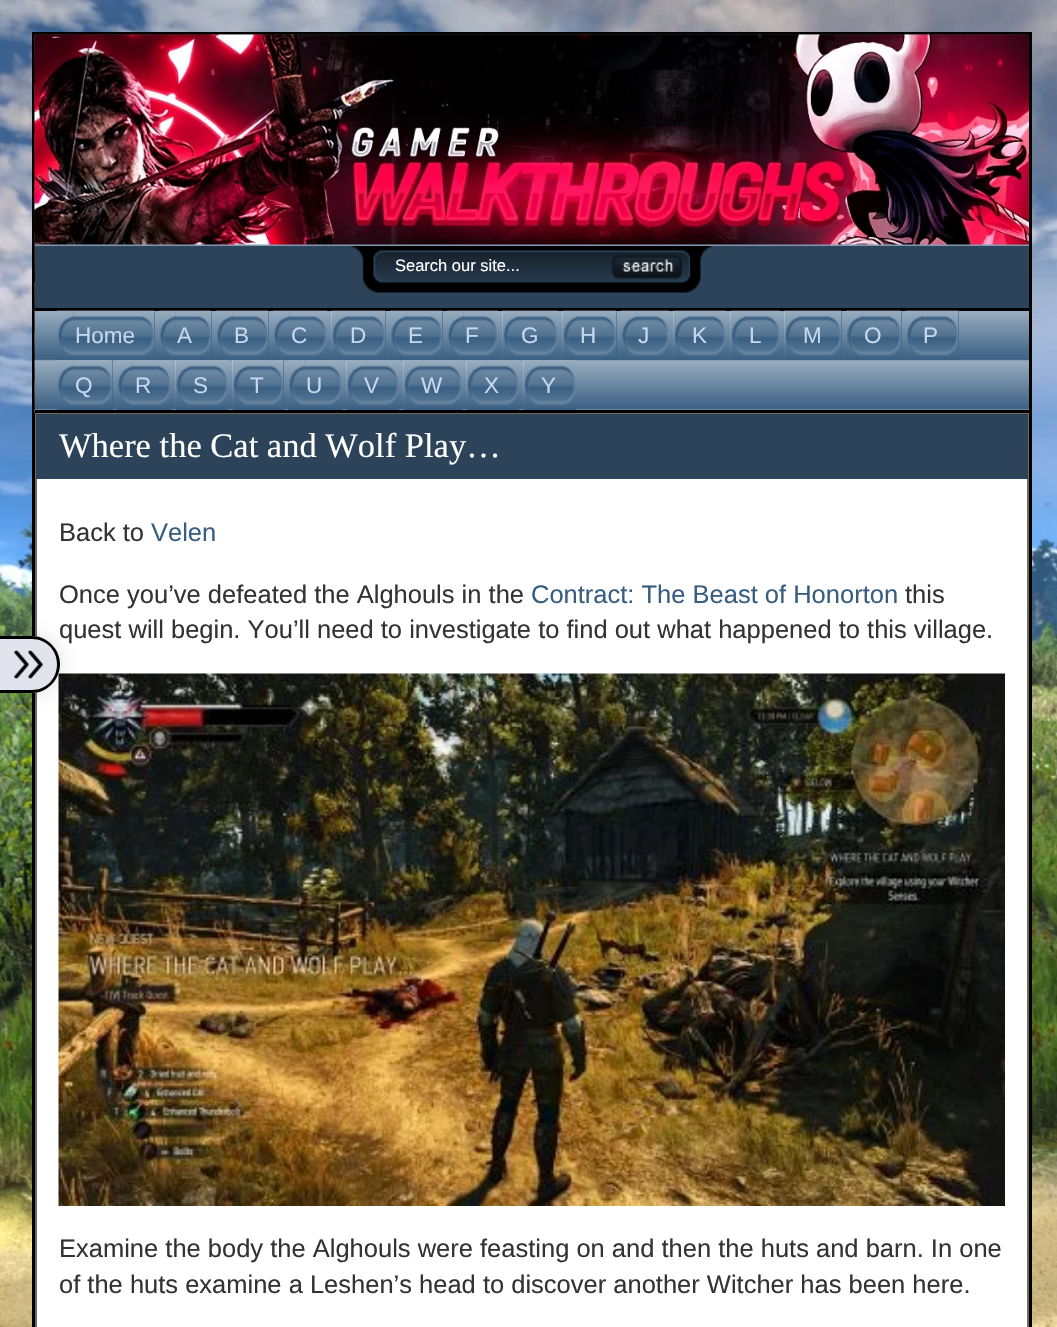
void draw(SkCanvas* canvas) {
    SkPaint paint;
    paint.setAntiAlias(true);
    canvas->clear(0xFFFFFFFF);
    canvas->drawImageRect(SkImages::DeferredFromEncodedData(SkData::MakeFromFileName("img1.png")), SkRect::MakeXYWH(0, 0, 1057, 1327), SkSamplingOptions());
    paint.setStyle(SkPaint::kStroke_Style);
    paint.setStrokeWidth(3);
    paint.setColor(0xFF000000);
    canvas->drawRect(SkRect::MakeXYWH(33.5f, 33.5f, 997, 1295), paint);
    paint.setStyle(SkPaint::kFill_Style);
    paint.setColor(0xFF375D81);
    canvas->drawRect(SkRect::MakeXYWH(35, 244, 994, 2), paint);
    canvas->drawImageRect(SkImages::DeferredFromEncodedData(SkData::MakeFromFileName("img4.png")), SkRect::MakeXYWH(34, 34, 995, 379), SkSamplingOptions());
    canvas->drawImageRect(SkImages::DeferredFromEncodedData(SkData::MakeFromFileName("img2.png")), SkRect::MakeXYWH(34, 34, 995, 211), SkSamplingOptions());
    paint.setColor(0xFF2C4359);
    canvas->drawRect(SkRect::MakeXYWH(35, 246, 994, 62), paint);
    paint.setColor(0xFF375D81);
    canvas->drawRect(SkRect::MakeXYWH(35, 311, 994, 99), paint);
    canvas->drawImageRect(SkImages::DeferredFromEncodedData(SkData::MakeFromFileName("img5.png")), SkRect::MakeXYWH(34, 310, 995, 103), SkSamplingOptions());
    paint.setColor(0xFF000000);
    canvas->drawRect(SkRect::MakeXYWH(35, 308, 994, 3), paint);
    canvas->drawImageRect(SkImages::DeferredFromEncodedData(SkData::MakeFromFileName("img3.png")), SkRect::MakeXYWH(349, 246, 364, 47), SkSamplingOptions());
    SkFont font1(fontMgr->matchFamilyStyle("Liberation Sans", SkFontStyle::Normal()), 16.5f);
    font1.setSubpixel(true);
    paint.setColor(0xFFFFFFFF);
    canvas->drawString("Search our site...", 395, 271, font1, paint);
    paint.setColor(0xFF000000);
    canvas->drawRect(SkRect::MakeXYWH(35, 410, 994, 3), paint);
    paint.setColor(0xFF375D81);
    canvas->drawRect(SkRect::MakeXYWH(57, 311, 98, 49), paint);
    canvas->drawImageRect(SkImages::DeferredFromEncodedData(SkData::MakeFromFileName("img6.png")), SkRect::MakeXYWH(57, 310, 17, 50), SkSamplingOptions());
    canvas->drawImageRect(SkImages::DeferredFromEncodedData(SkData::MakeFromFileName("img7.png")), SkRect::MakeXYWH(73, 310, 82, 50), SkSamplingOptions());
    SkFont font2(fontMgr->matchFamilyStyle("Liberation Sans", SkFontStyle::Normal()), 22.5f);
    font2.setSubpixel(true);
    paint.setColor(0xFFC4D7ED);
    canvas->drawString("Home", 75, 343, font2, paint);
    paint.setColor(0xFF375D81);
    canvas->drawRect(SkRect::MakeXYWH(159, 311, 53, 49), paint);
    canvas->drawImageRect(SkImages::DeferredFromEncodedData(SkData::MakeFromFileName("img6.png")), SkRect::MakeXYWH(159, 310, 17, 50), SkSamplingOptions());
    canvas->drawImageRect(SkImages::DeferredFromEncodedData(SkData::MakeFromFileName("img8.png")), SkRect::MakeXYWH(175, 310, 37, 50), SkSamplingOptions());
    paint.setColor(0xFFC4D7ED);
    canvas->drawString("A", 177, 343, font2, paint);
    paint.setColor(0xFF375D81);
    canvas->drawRect(SkRect::MakeXYWH(216, 311, 53, 49), paint);
    canvas->drawImageRect(SkImages::DeferredFromEncodedData(SkData::MakeFromFileName("img6.png")), SkRect::MakeXYWH(216, 310, 17, 50), SkSamplingOptions());
    canvas->drawImageRect(SkImages::DeferredFromEncodedData(SkData::MakeFromFileName("img8.png")), SkRect::MakeXYWH(232, 310, 37, 50), SkSamplingOptions());
    paint.setColor(0xFFC4D7ED);
    canvas->drawString("B", 234, 343, font2, paint);
    paint.setColor(0xFF375D81);
    canvas->drawRect(SkRect::MakeXYWH(273, 311, 54, 49), paint);
    canvas->drawImageRect(SkImages::DeferredFromEncodedData(SkData::MakeFromFileName("img9.png")), SkRect::MakeXYWH(273, 310, 17, 50), SkSamplingOptions());
    canvas->drawImageRect(SkImages::DeferredFromEncodedData(SkData::MakeFromFileName("img10.png")), SkRect::MakeXYWH(289, 310, 38, 50), SkSamplingOptions());
    paint.setColor(0xFFC4D7ED);
    canvas->drawString("C", 291, 343, font2, paint);
    paint.setColor(0xFF375D81);
    canvas->drawRect(SkRect::MakeXYWH(332, 311, 54, 49), paint);
    canvas->drawImageRect(SkImages::DeferredFromEncodedData(SkData::MakeFromFileName("img11.png")), SkRect::MakeXYWH(331, 310, 17, 50), SkSamplingOptions());
    canvas->drawImageRect(SkImages::DeferredFromEncodedData(SkData::MakeFromFileName("img12.png")), SkRect::MakeXYWH(348, 310, 38, 50), SkSamplingOptions());
    paint.setColor(0xFFC4D7ED);
    canvas->drawString("D", 350, 343, font2, paint);
    paint.setColor(0xFF375D81);
    canvas->drawRect(SkRect::MakeXYWH(390, 311, 53, 49), paint);
    canvas->drawImageRect(SkImages::DeferredFromEncodedData(SkData::MakeFromFileName("img9.png")), SkRect::MakeXYWH(390, 310, 17, 50), SkSamplingOptions());
    canvas->drawImageRect(SkImages::DeferredFromEncodedData(SkData::MakeFromFileName("img13.png")), SkRect::MakeXYWH(406, 310, 37, 50), SkSamplingOptions());
    paint.setColor(0xFFC4D7ED);
    canvas->drawString("E", 408, 343, font2, paint);
    paint.setColor(0xFF375D81);
    canvas->drawRect(SkRect::MakeXYWH(447, 311, 51, 49), paint);
    canvas->drawImageRect(SkImages::DeferredFromEncodedData(SkData::MakeFromFileName("img9.png")), SkRect::MakeXYWH(447, 310, 17, 50), SkSamplingOptions());
    canvas->drawImageRect(SkImages::DeferredFromEncodedData(SkData::MakeFromFileName("img14.png")), SkRect::MakeXYWH(463, 310, 35, 50), SkSamplingOptions());
    paint.setColor(0xFFC4D7ED);
    canvas->drawString("F", 465, 343, font2, paint);
    paint.setColor(0xFF375D81);
    canvas->drawRect(SkRect::MakeXYWH(503, 311, 55, 49), paint);
    canvas->drawImageRect(SkImages::DeferredFromEncodedData(SkData::MakeFromFileName("img11.png")), SkRect::MakeXYWH(502, 310, 17, 50), SkSamplingOptions());
    canvas->drawImageRect(SkImages::DeferredFromEncodedData(SkData::MakeFromFileName("img15.png")), SkRect::MakeXYWH(519, 310, 39, 50), SkSamplingOptions());
    paint.setColor(0xFFC4D7ED);
    canvas->drawString("G", 521, 343, font2, paint);
    paint.setColor(0xFF375D81);
    canvas->drawRect(SkRect::MakeXYWH(563, 311, 54, 49), paint);
    canvas->drawImageRect(SkImages::DeferredFromEncodedData(SkData::MakeFromFileName("img16.png")), SkRect::MakeXYWH(562, 310, 17, 50), SkSamplingOptions());
    canvas->drawImageRect(SkImages::DeferredFromEncodedData(SkData::MakeFromFileName("img12.png")), SkRect::MakeXYWH(579, 310, 38, 50), SkSamplingOptions());
    paint.setColor(0xFFC4D7ED);
    canvas->drawString("H", 580, 343, font2, paint);
    paint.setColor(0xFF375D81);
    canvas->drawRect(SkRect::MakeXYWH(621, 311, 48, 49), paint);
    canvas->drawImageRect(SkImages::DeferredFromEncodedData(SkData::MakeFromFileName("img6.png")), SkRect::MakeXYWH(621, 310, 17, 50), SkSamplingOptions());
    canvas->drawImageRect(SkImages::DeferredFromEncodedData(SkData::MakeFromFileName("img17.png")), SkRect::MakeXYWH(637, 310, 32, 50), SkSamplingOptions());
    paint.setColor(0xFFC4D7ED);
    canvas->drawString("J", 638, 343, font2, paint);
    paint.setColor(0xFF375D81);
    canvas->drawRect(SkRect::MakeXYWH(674, 311, 52, 49), paint);
    canvas->drawImageRect(SkImages::DeferredFromEncodedData(SkData::MakeFromFileName("img16.png")), SkRect::MakeXYWH(673, 310, 17, 50), SkSamplingOptions());
    canvas->drawImageRect(SkImages::DeferredFromEncodedData(SkData::MakeFromFileName("img18.png")), SkRect::MakeXYWH(690, 310, 36, 50), SkSamplingOptions());
    paint.setColor(0xFFC4D7ED);
    canvas->drawString("K", 692, 343, font2, paint);
    paint.setColor(0xFF375D81);
    canvas->drawRect(SkRect::MakeXYWH(731, 311, 49, 49), paint);
    canvas->drawImageRect(SkImages::DeferredFromEncodedData(SkData::MakeFromFileName("img16.png")), SkRect::MakeXYWH(730, 310, 17, 50), SkSamplingOptions());
    canvas->drawImageRect(SkImages::DeferredFromEncodedData(SkData::MakeFromFileName("img19.png")), SkRect::MakeXYWH(747, 310, 33, 50), SkSamplingOptions());
    paint.setColor(0xFFC4D7ED);
    canvas->drawString("L", 749, 343, font2, paint);
    paint.setColor(0xFF375D81);
    canvas->drawRect(SkRect::MakeXYWH(785, 311, 57, 49), paint);
    canvas->drawImageRect(SkImages::DeferredFromEncodedData(SkData::MakeFromFileName("img11.png")), SkRect::MakeXYWH(784, 310, 17, 50), SkSamplingOptions());
    canvas->drawImageRect(SkImages::DeferredFromEncodedData(SkData::MakeFromFileName("img20.png")), SkRect::MakeXYWH(801, 310, 41, 50), SkSamplingOptions());
    paint.setColor(0xFFC4D7ED);
    canvas->drawString("M", 803, 343, font2, paint);
    paint.setColor(0xFF375D81);
    canvas->drawRect(SkRect::MakeXYWH(846, 311, 56, 49), paint);
    canvas->drawImageRect(SkImages::DeferredFromEncodedData(SkData::MakeFromFileName("img6.png")), SkRect::MakeXYWH(846, 310, 17, 50), SkSamplingOptions());
    canvas->drawImageRect(SkImages::DeferredFromEncodedData(SkData::MakeFromFileName("img21.png")), SkRect::MakeXYWH(862, 310, 40, 50), SkSamplingOptions());
    paint.setColor(0xFFC4D7ED);
    canvas->drawString("O", 864, 343, font2, paint);
    paint.setColor(0xFF375D81);
    canvas->drawRect(SkRect::MakeXYWH(906, 311, 53, 49), paint);
    canvas->drawImageRect(SkImages::DeferredFromEncodedData(SkData::MakeFromFileName("img6.png")), SkRect::MakeXYWH(906, 310, 17, 50), SkSamplingOptions());
    canvas->drawImageRect(SkImages::DeferredFromEncodedData(SkData::MakeFromFileName("img8.png")), SkRect::MakeXYWH(922, 310, 37, 50), SkSamplingOptions());
    paint.setColor(0xFFC4D7ED);
    canvas->drawString("P", 923, 343, font2, paint);
    paint.setColor(0xFF375D81);
    canvas->drawRect(SkRect::MakeXYWH(57, 360, 56, 50), paint);
    canvas->drawImageRect(SkImages::DeferredFromEncodedData(SkData::MakeFromFileName("img22.png")), SkRect::MakeXYWH(57, 360, 17, 49), SkSamplingOptions());
    canvas->drawImageRect(SkImages::DeferredFromEncodedData(SkData::MakeFromFileName("img23.png")), SkRect::MakeXYWH(73, 360, 40, 49), SkSamplingOptions());
    paint.setColor(0xFFC4D7ED);
    canvas->drawString("Q", 75, 393, font2, paint);
    paint.setColor(0xFF375D81);
    canvas->drawRect(SkRect::MakeXYWH(117, 360, 54, 50), paint);
    canvas->drawImageRect(SkImages::DeferredFromEncodedData(SkData::MakeFromFileName("img22.png")), SkRect::MakeXYWH(117, 360, 17, 49), SkSamplingOptions());
    canvas->drawImageRect(SkImages::DeferredFromEncodedData(SkData::MakeFromFileName("img24.png")), SkRect::MakeXYWH(133, 360, 38, 49), SkSamplingOptions());
    paint.setColor(0xFFC4D7ED);
    canvas->drawString("R", 135, 393, font2, paint);
    paint.setColor(0xFF375D81);
    canvas->drawRect(SkRect::MakeXYWH(176, 360, 52, 50), paint);
    canvas->drawImageRect(SkImages::DeferredFromEncodedData(SkData::MakeFromFileName("img25.png")), SkRect::MakeXYWH(175, 360, 17, 49), SkSamplingOptions());
    canvas->drawImageRect(SkImages::DeferredFromEncodedData(SkData::MakeFromFileName("img26.png")), SkRect::MakeXYWH(192, 360, 36, 49), SkSamplingOptions());
    paint.setColor(0xFFC4D7ED);
    canvas->drawString("S", 193, 393, font2, paint);
    paint.setColor(0xFF375D81);
    canvas->drawRect(SkRect::MakeXYWH(233, 360, 51, 50), paint);
    canvas->drawImageRect(SkImages::DeferredFromEncodedData(SkData::MakeFromFileName("img25.png")), SkRect::MakeXYWH(232, 360, 17, 49), SkSamplingOptions());
    canvas->drawImageRect(SkImages::DeferredFromEncodedData(SkData::MakeFromFileName("img27.png")), SkRect::MakeXYWH(249, 360, 35, 49), SkSamplingOptions());
    paint.setColor(0xFFC4D7ED);
    canvas->drawString("T", 250, 393, font2, paint);
    paint.setColor(0xFF375D81);
    canvas->drawRect(SkRect::MakeXYWH(288, 360, 54, 50), paint);
    canvas->drawImageRect(SkImages::DeferredFromEncodedData(SkData::MakeFromFileName("img28.png")), SkRect::MakeXYWH(288, 360, 17, 49), SkSamplingOptions());
    canvas->drawImageRect(SkImages::DeferredFromEncodedData(SkData::MakeFromFileName("img24.png")), SkRect::MakeXYWH(304, 360, 38, 49), SkSamplingOptions());
    paint.setColor(0xFFC4D7ED);
    canvas->drawString("U", 306, 393, font2, paint);
    paint.setColor(0xFF375D81);
    canvas->drawRect(SkRect::MakeXYWH(347, 360, 52, 50), paint);
    canvas->drawImageRect(SkImages::DeferredFromEncodedData(SkData::MakeFromFileName("img25.png")), SkRect::MakeXYWH(346, 360, 17, 49), SkSamplingOptions());
    canvas->drawImageRect(SkImages::DeferredFromEncodedData(SkData::MakeFromFileName("img29.png")), SkRect::MakeXYWH(363, 360, 36, 49), SkSamplingOptions());
    paint.setColor(0xFFC4D7ED);
    canvas->drawString("V", 364, 393, font2, paint);
    paint.setColor(0xFF375D81);
    canvas->drawRect(SkRect::MakeXYWH(404, 360, 58, 50), paint);
    canvas->drawImageRect(SkImages::DeferredFromEncodedData(SkData::MakeFromFileName("img30.png")), SkRect::MakeXYWH(403, 360, 17, 49), SkSamplingOptions());
    canvas->drawImageRect(SkImages::DeferredFromEncodedData(SkData::MakeFromFileName("img31.png")), SkRect::MakeXYWH(420, 360, 42, 49), SkSamplingOptions());
    paint.setColor(0xFFC4D7ED);
    canvas->drawString("W", 421, 393, font2, paint);
    paint.setColor(0xFF375D81);
    canvas->drawRect(SkRect::MakeXYWH(467, 360, 52, 50), paint);
    canvas->drawImageRect(SkImages::DeferredFromEncodedData(SkData::MakeFromFileName("img25.png")), SkRect::MakeXYWH(466, 360, 17, 49), SkSamplingOptions());
    canvas->drawImageRect(SkImages::DeferredFromEncodedData(SkData::MakeFromFileName("img32.png")), SkRect::MakeXYWH(483, 360, 36, 49), SkSamplingOptions());
    paint.setColor(0xFFC4D7ED);
    canvas->drawString("X", 484, 393, font2, paint);
    paint.setColor(0xFF375D81);
    canvas->drawRect(SkRect::MakeXYWH(524, 360, 52, 50), paint);
    canvas->drawImageRect(SkImages::DeferredFromEncodedData(SkData::MakeFromFileName("img30.png")), SkRect::MakeXYWH(523, 360, 17, 49), SkSamplingOptions());
    canvas->drawImageRect(SkImages::DeferredFromEncodedData(SkData::MakeFromFileName("img26.png")), SkRect::MakeXYWH(540, 360, 36, 49), SkSamplingOptions());
    paint.setColor(0xFFC4D7ED);
    canvas->drawString("Y", 541, 393, font2, paint);
    paint.setColor(0xFFFFFFFF);
    canvas->drawRect(SkRect::MakeXYWH(37, 479, 990, 848), paint);
    paint.setStyle(SkPaint::kStroke_Style);
    paint.setStrokeWidth(2);
    paint.setColor(0xFF706A59);
    canvas->drawRect(SkRect::MakeXYWH(36, 414, 992, 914), paint);
    canvas->drawImageRect(SkImages::DeferredFromEncodedData(SkData::MakeFromFileName("img34.png")), SkRect::MakeXYWH(58, 673, 947, 533), SkSamplingOptions());
    paint.setStyle(SkPaint::kFill_Style);
    paint.setColor(0x1A000000);
    paint.setMaskFilter(SkMaskFilter::MakeBlur(kNormal_SkBlurStyle, 7.5f));
    canvas->drawRoundRect(SkRect::MakeXYWH(-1, 635, 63, 60), 30, 30, paint);
    paint.setMaskFilter(nullptr);
    SkFont font3(fontMgr->matchFamilyStyle("Liberation Sans", SkFontStyle::Normal()), 25.5f);
    font3.setSubpixel(true);
    paint.setColor(0xFF333333);
    canvas->drawString("quest will begin. You’ll need to investigate to find out what happened to this village.", 59, 638, font3, paint);
    paint.setColor(0xFFE1E4ED);
    canvas->drawPath(SkPathBuilder().moveTo(0, 636).lineTo(31.5f, 636).cubicTo(47, 636, 60, 649, 60, 664.5f).cubicTo(60, 680, 47, 693, 31.5f, 693).lineTo(0, 693).close().detach(), paint);
    paint.setColor(0xFF000000);
    canvas->drawPath(SkPathBuilder(SkPathFillType::kEvenOdd).moveTo(0, 636).lineTo(32, 636).cubicTo(47, 636, 60, 649, 60, 664).cubicTo(60, 680, 47, 693, 32, 693).lineTo(0, 693).close().moveTo(0, 639).lineTo(32, 639).cubicTo(46, 639, 57, 650, 57, 664).cubicTo(57, 679, 46, 690, 32, 690).lineTo(0, 690).close().detach(), paint);
    canvas->drawImageRect(SkImages::DeferredFromEncodedData(SkData::MakeFromFileName("img33.png")), SkRect::MakeXYWH(13, 650, 31, 29), SkSamplingOptions());
    paint.setColor(0xFF2C4359);
    canvas->drawRect(SkRect::MakeXYWH(36, 414, 992, 65), paint);
    SkFont font4(fontMgr->matchFamilyStyle("Liberation Serif", SkFontStyle::Normal()), 34.5f);
    font4.setSubpixel(true);
    paint.setColor(0xFFFFFFFF);
    canvas->drawString("Where the Cat and Wolf Play…", 59, 457, font4, paint);
    paint.setColor(0xFF333333);
    canvas->drawString("Back to", 59, 541, font3, paint);
    paint.setColor(0xFF375D81);
    canvas->drawString("Velen", 151, 541, font3, paint);
    paint.setColor(0xFF333333);
    canvas->drawString("Once you’ve defeated the Alghouls in the", 59, 603, font3, paint);
    paint.setColor(0xFF375D81);
    canvas->drawString("Contract: The Beast of Honorton", 531, 603, font3, paint);
    paint.setColor(0xFF333333);
    canvas->drawString("this", 905, 603, font3, paint);
    canvas->drawString("Examine the body the Alghouls were feasting on and then the huts and barn. In one", 59, 1257, font3, paint);
    canvas->drawString("of the huts examine a Leshen’s head to discover another Witcher has been here.", 59, 1293, font3, paint);
}
